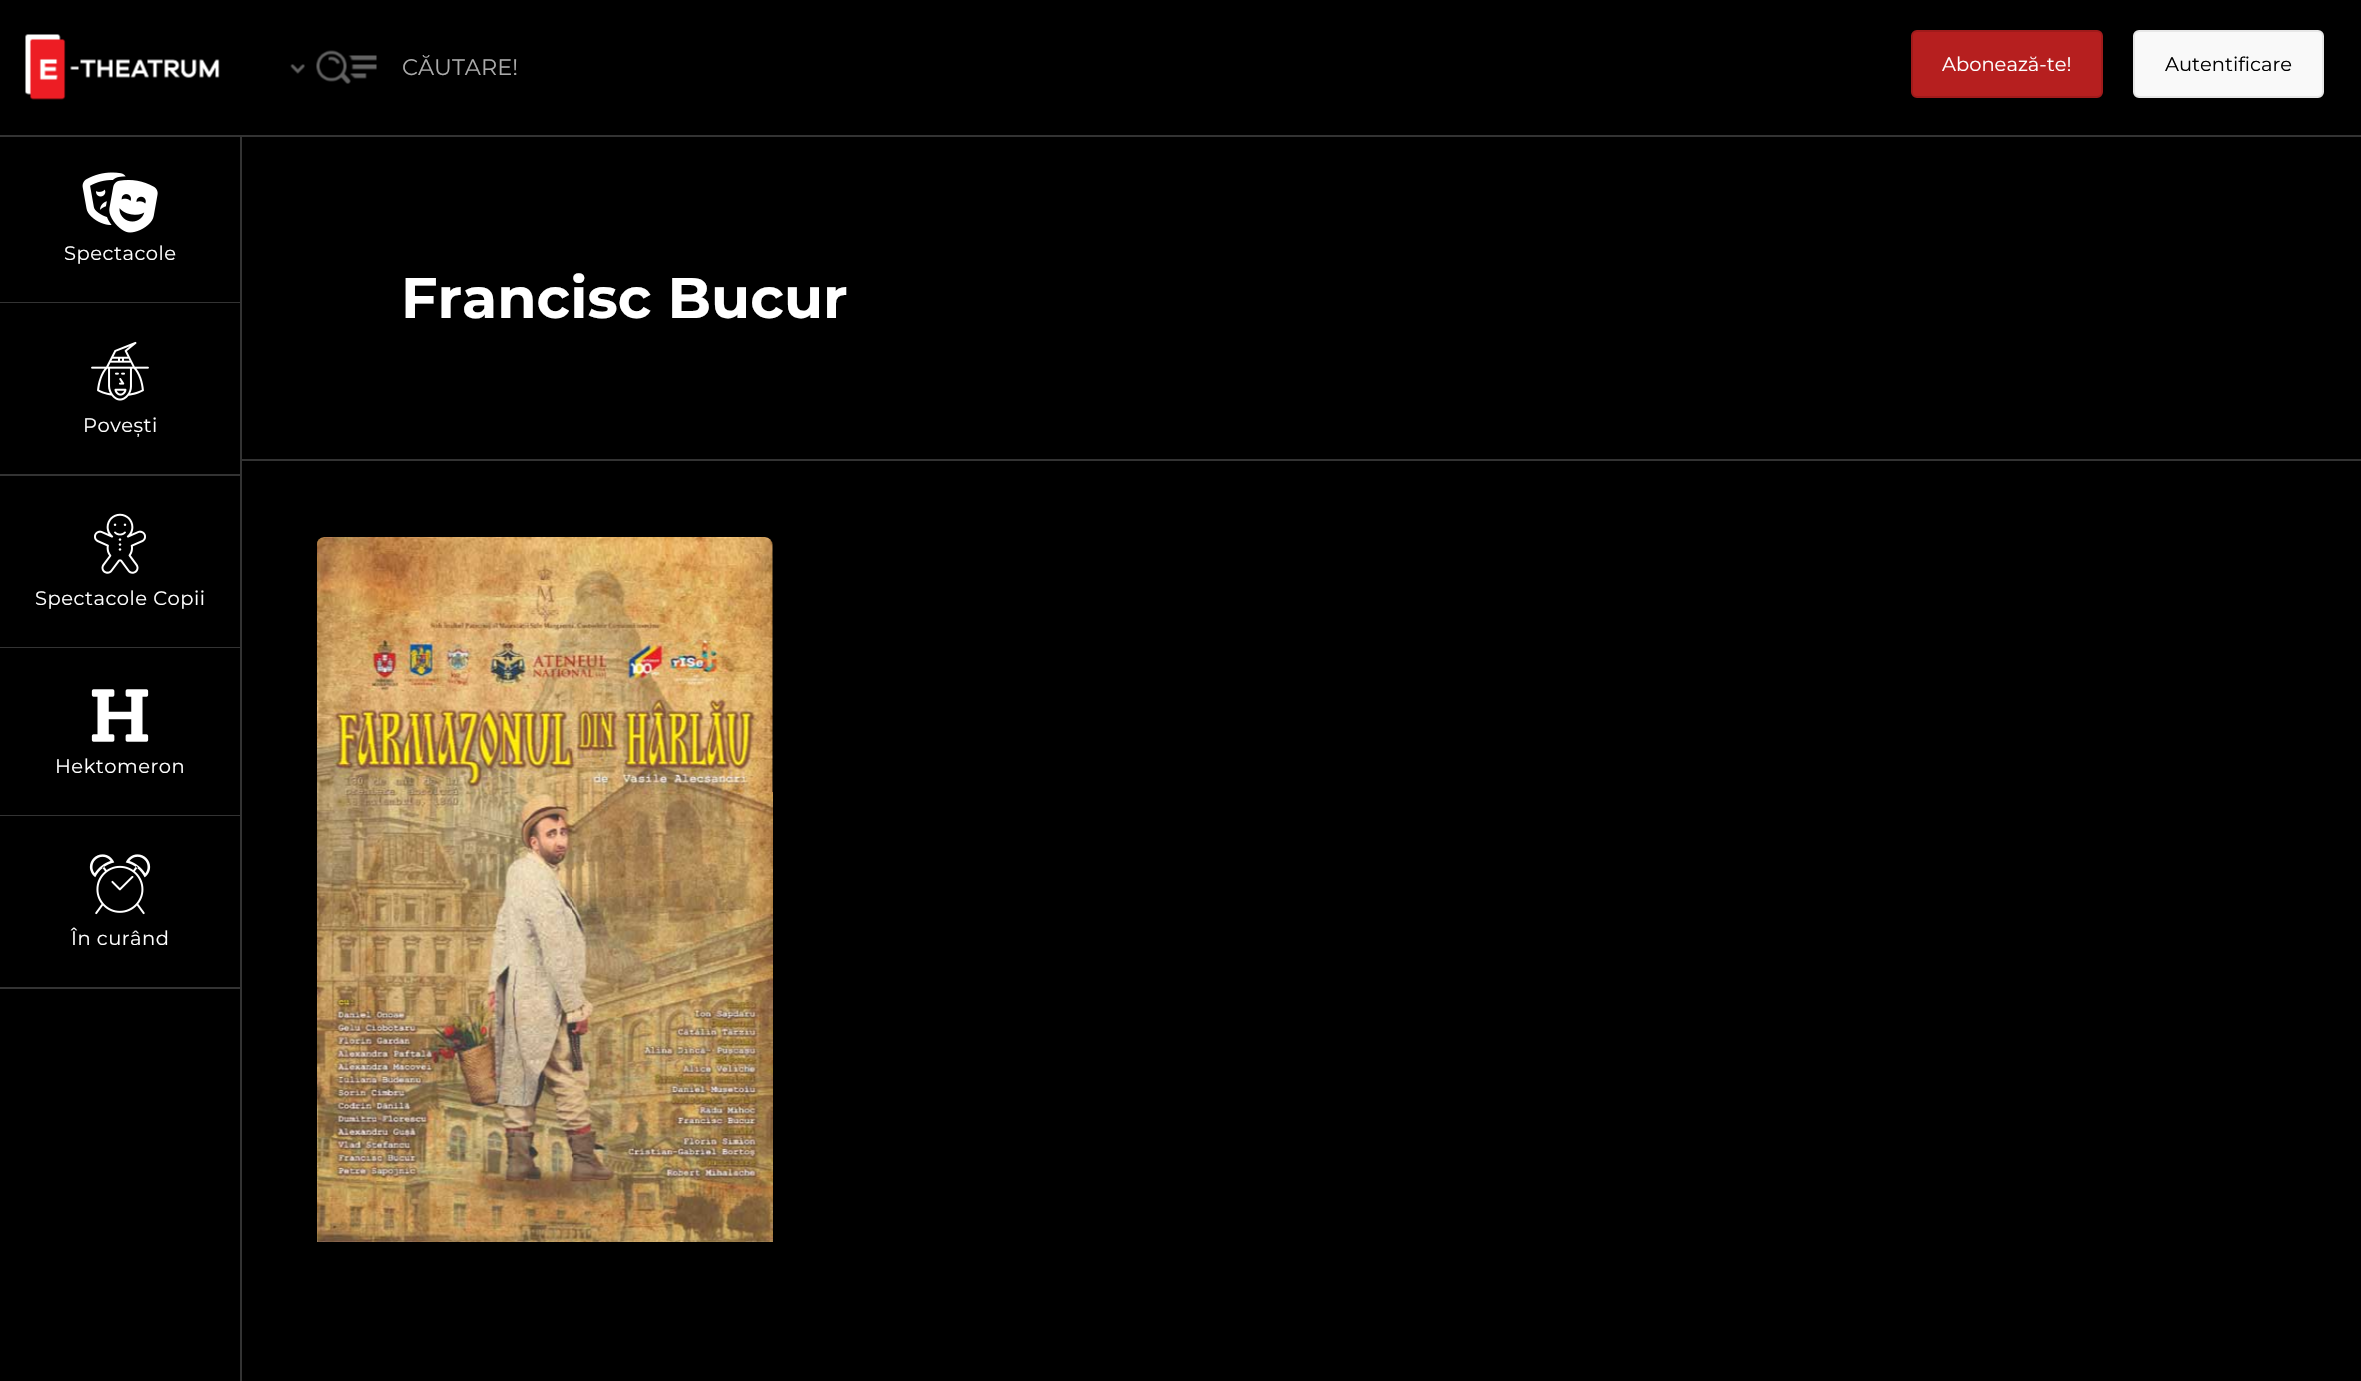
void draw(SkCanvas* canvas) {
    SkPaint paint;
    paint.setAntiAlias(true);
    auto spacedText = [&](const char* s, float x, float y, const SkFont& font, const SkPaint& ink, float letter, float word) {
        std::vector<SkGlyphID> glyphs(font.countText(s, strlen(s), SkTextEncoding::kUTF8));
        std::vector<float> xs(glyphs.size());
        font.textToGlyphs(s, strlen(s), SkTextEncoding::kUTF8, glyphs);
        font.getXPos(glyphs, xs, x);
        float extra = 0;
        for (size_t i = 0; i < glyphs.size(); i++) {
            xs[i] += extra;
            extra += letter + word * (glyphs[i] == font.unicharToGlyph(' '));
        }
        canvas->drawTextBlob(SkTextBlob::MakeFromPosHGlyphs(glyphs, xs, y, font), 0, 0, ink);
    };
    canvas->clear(0xFF000000);
    paint.setColor(0xFF333333);
    canvas->drawRect(SkRect::MakeXYWH(0, 135, 2361, 2), paint);
    canvas->drawImageRect(SkImages::DeferredFromEncodedData(SkData::MakeFromFileName("img1.png")), SkRect::MakeXYWH(25, 34, 195, 66), SkSamplingOptions());
    canvas->drawImageRect(SkImages::DeferredFromEncodedData(SkData::MakeFromFileName("img2.png")), SkRect::MakeXYWH(290, 50, 87, 34), SkSamplingOptions());
    SkFont font1(fontMgr->matchFamilyStyle("Montserrat", SkFontStyle::Normal()), 22.5f);
    font1.setSubpixel(true);
    paint.setColor(0xFFAAAAAA);
    canvas->drawString("CĂUTARE!", 402, 75, font1, paint);
    paint.setColor(0xFFB61F1F);
    canvas->drawRoundRect(SkRect::MakeXYWH(1912, 31, 190, 66), 5, 5, paint);
    paint.setStyle(SkPaint::kStroke_Style);
    paint.setStrokeWidth(2);
    paint.setColor(0xFFA01B1B);
    canvas->drawRoundRect(SkRect::MakeXYWH(1912, 31, 190, 66), 5, 5, paint);
    SkFont font2(fontMgr->matchFamilyStyle("Montserrat", SkFontStyle::Normal()), 19.5f);
    font2.setSubpixel(true);
    paint.setStyle(SkPaint::kFill_Style);
    paint.setColor(0xFFFFFFFF);
    canvas->drawString("Abonează-te!", 1942, 71, font2, paint);
    paint.setColor(0xFFF9F9F9);
    canvas->drawRoundRect(SkRect::MakeXYWH(2134, 31, 189, 66), 5, 5, paint);
    paint.setStyle(SkPaint::kStroke_Style);
    paint.setColor(0xFFE7E7E7);
    canvas->drawRoundRect(SkRect::MakeXYWH(2134, 31, 189, 66), 5, 5, paint);
    paint.setStyle(SkPaint::kFill_Style);
    paint.setColor(0xFF000000);
    canvas->drawString("Autentificare", 2165, 71, font2, paint);
    paint.setColor(0xFF333333);
    canvas->drawRect(SkRect::MakeXYWH(0, 302, 240, 1), paint);
    canvas->drawImageRect(SkImages::DeferredFromEncodedData(SkData::MakeFromFileName("img3.png")), SkRect::MakeXYWH(82, 172, 76, 61), SkSamplingOptions());
    paint.setColor(0xFFFFFFFF);
    spacedText("Spectacole", 64, 260, font2, paint, 0.5f, 0);
    paint.setColor(0xFF333333);
    canvas->drawRect(SkRect::MakeXYWH(0, 474, 240, 2), paint);
    canvas->drawImageRect(SkImages::DeferredFromEncodedData(SkData::MakeFromFileName("img4.png")), SkRect::MakeXYWH(91, 341, 58, 60), SkSamplingOptions());
    paint.setColor(0xFFFFFFFF);
    spacedText("Povești", 83, 432, font2, paint, 0.5f, 0);
    paint.setColor(0xFF333333);
    canvas->drawRect(SkRect::MakeXYWH(0, 647, 240, 1), paint);
    canvas->drawImageRect(SkImages::DeferredFromEncodedData(SkData::MakeFromFileName("img5.png")), SkRect::MakeXYWH(94, 513, 52, 61), SkSamplingOptions());
    paint.setColor(0xFFFFFFFF);
    spacedText("Spectacole Copii", 35, 605, font2, paint, 0.5f, 0);
    paint.setColor(0xFF333333);
    canvas->drawRect(SkRect::MakeXYWH(0, 815, 240, 1), paint);
    canvas->drawImageRect(SkImages::DeferredFromEncodedData(SkData::MakeFromFileName("img6.png")), SkRect::MakeXYWH(91, 689, 58, 53), SkSamplingOptions());
    paint.setColor(0xFFFFFFFF);
    spacedText("Hektomeron", 55, 773, font2, paint, 0.5f, 0);
    paint.setColor(0xFF333333);
    canvas->drawRect(SkRect::MakeXYWH(0, 987, 240, 2), paint);
    canvas->drawImageRect(SkImages::DeferredFromEncodedData(SkData::MakeFromFileName("img7.png")), SkRect::MakeXYWH(89, 854, 62, 61), SkSamplingOptions());
    paint.setColor(0xFFFFFFFF);
    spacedText("În curând", 71, 945, font2, paint, 0.5f, 0);
    paint.setColor(0xFF333333);
    canvas->drawRect(SkRect::MakeXYWH(240, 459, 2121, 2), paint);
    canvas->drawRect(SkRect::MakeXYWH(240, 137, 2, 1244), paint);
    SkFont font3(fontMgr->matchFamilyStyle("Montserrat", SkFontStyle::Bold()), 57);
    font3.setSubpixel(true);
    paint.setColor(0xFFFFFFFF);
    canvas->drawString("Francisc Bucur", 401, 318, font3, paint);
    canvas->drawImageRect(SkImages::DeferredFromEncodedData(SkData::MakeFromFileName("img8.png")), SkRect::MakeXYWH(317, 537, 456, 705), SkSamplingOptions());
}
